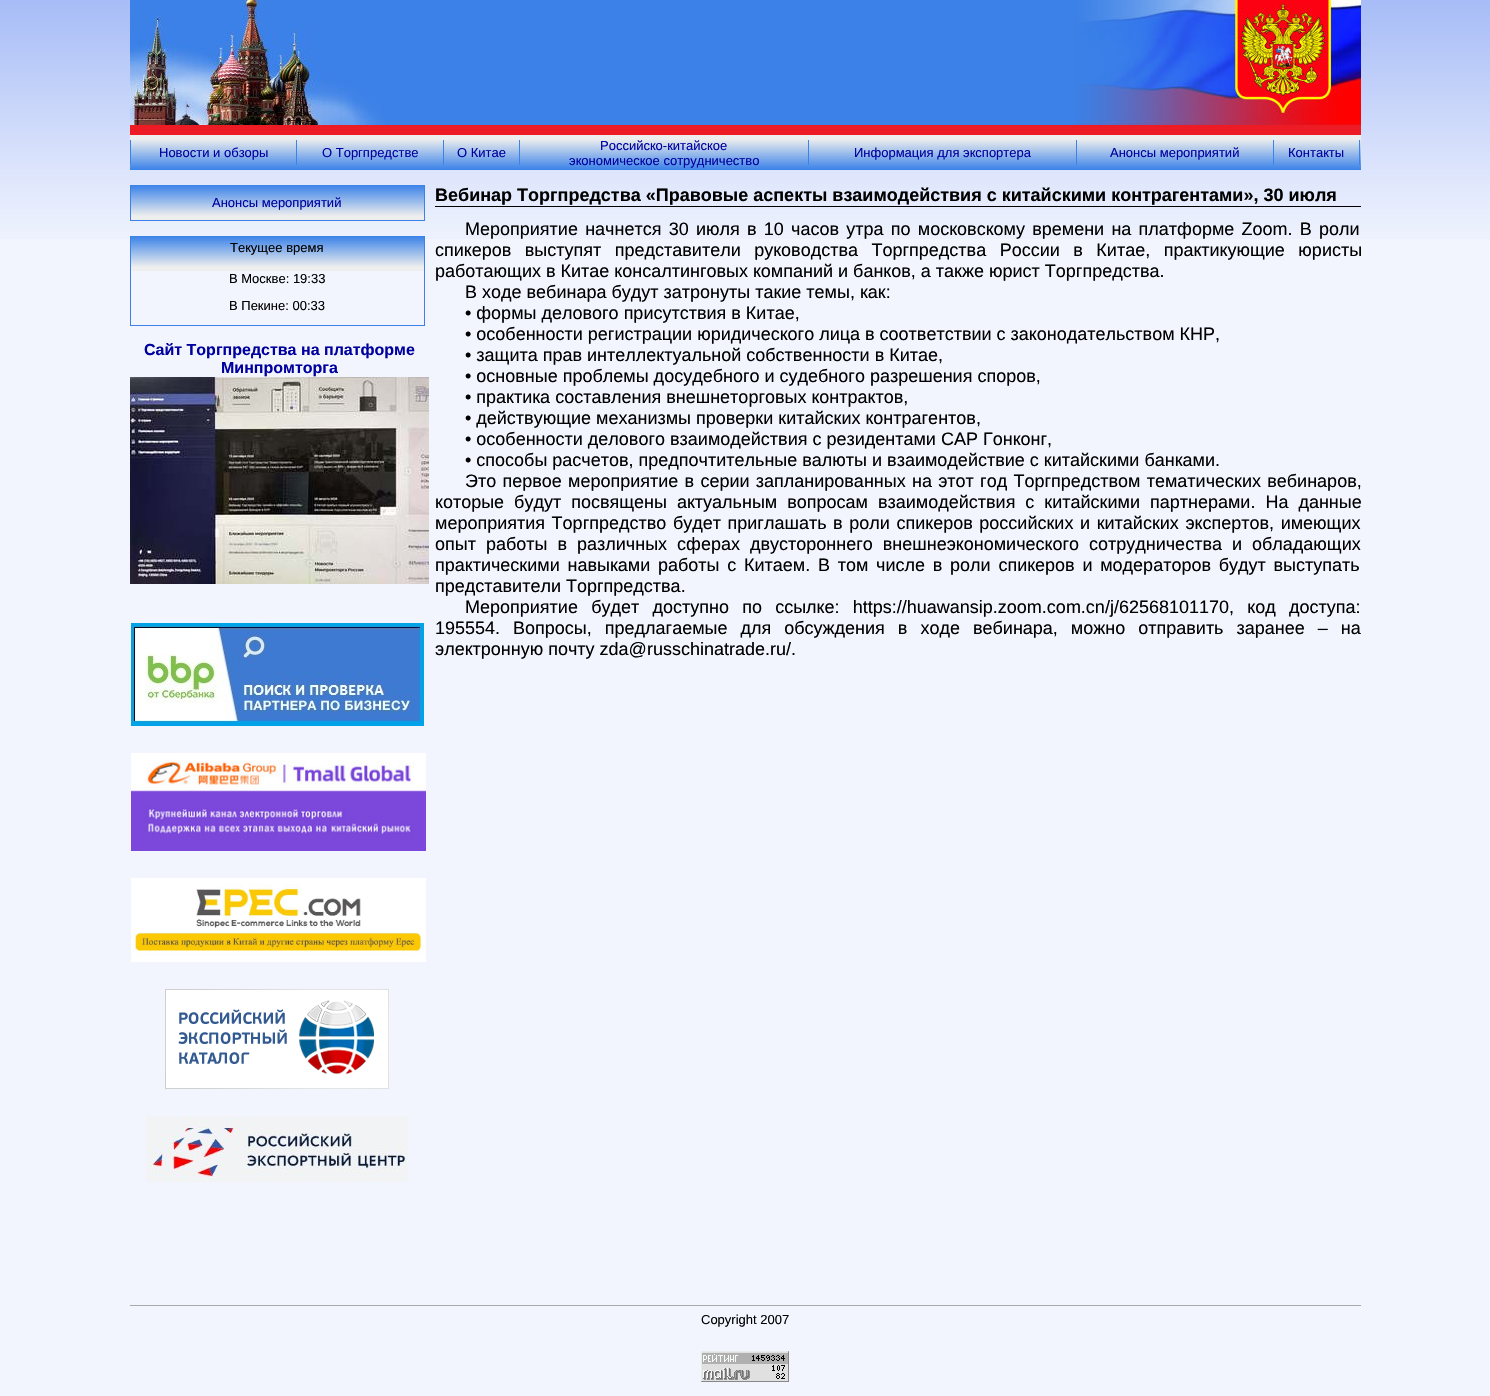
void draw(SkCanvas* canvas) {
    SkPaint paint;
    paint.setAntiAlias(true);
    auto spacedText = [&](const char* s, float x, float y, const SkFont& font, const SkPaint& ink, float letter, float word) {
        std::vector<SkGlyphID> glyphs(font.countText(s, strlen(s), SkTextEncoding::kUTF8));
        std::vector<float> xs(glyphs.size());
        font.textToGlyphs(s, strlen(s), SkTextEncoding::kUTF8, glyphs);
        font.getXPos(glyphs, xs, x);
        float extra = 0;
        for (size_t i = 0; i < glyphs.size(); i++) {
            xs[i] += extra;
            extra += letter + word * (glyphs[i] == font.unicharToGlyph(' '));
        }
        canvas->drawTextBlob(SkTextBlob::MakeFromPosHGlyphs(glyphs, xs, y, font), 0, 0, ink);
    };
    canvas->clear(0xFFF2F5FE);
    canvas->drawImageRect(SkImages::DeferredFromEncodedData(SkData::MakeFromFileName("img1.png")), SkRect::MakeXYWH(0, 0, 1490, 239), SkSamplingOptions());
    paint.setColor(0xFF3B81E7);
    canvas->drawRect(SkRect::MakeXYWH(385, 0, 689, 125), paint);
    canvas->drawImageRect(SkImages::DeferredFromEncodedData(SkData::MakeFromFileName("img2.png")), SkRect::MakeXYWH(130, 0, 255, 125), SkSamplingOptions());
    canvas->drawImageRect(SkImages::DeferredFromEncodedData(SkData::MakeFromFileName("img3.png")), SkRect::MakeXYWH(1074, 0, 287, 125), SkSamplingOptions());
    paint.setColor(0xFFED1B23);
    canvas->drawRect(SkRect::MakeXYWH(130, 125, 1231, 10), paint);
    canvas->drawImageRect(SkImages::DeferredFromEncodedData(SkData::MakeFromFileName("img4.png")), SkRect::MakeXYWH(130, 135, 1231, 35), SkSamplingOptions());
    paint.setColor(0xFF3B83E9);
    canvas->drawRect(SkRect::MakeXYWH(130, 140, 1, 25), paint);
    SkFont font1(fontMgr->matchFamilyStyle("Liberation Sans", SkFontStyle::Normal()), 13);
    font1.setSubpixel(true);
    paint.setColor(0xFF00009F);
    canvas->drawString("Новости и обзоры", 159, 157, font1, paint);
    paint.setColor(0xFF3B83E9);
    canvas->drawRect(SkRect::MakeXYWH(296, 140, 1, 25), paint);
    paint.setColor(0xFF00009F);
    canvas->drawString("О Торгпредстве", 322, 157, font1, paint);
    paint.setColor(0xFF3B83E9);
    canvas->drawRect(SkRect::MakeXYWH(443, 140, 1, 25), paint);
    paint.setColor(0xFF00009F);
    canvas->drawString("О Китае", 457, 157, font1, paint);
    paint.setColor(0xFF3B83E9);
    canvas->drawRect(SkRect::MakeXYWH(519, 140, 1, 25), paint);
    paint.setColor(0xFF00009F);
    canvas->drawString("Российско-китайское", 600, 150, font1, paint);
    canvas->drawString("экономическое сотрудничество", 569, 165, font1, paint);
    paint.setColor(0xFF3B83E9);
    canvas->drawRect(SkRect::MakeXYWH(808, 140, 1, 25), paint);
    paint.setColor(0xFF00009F);
    canvas->drawString("Информация для экспортера", 854, 157, font1, paint);
    paint.setColor(0xFF3B83E9);
    canvas->drawRect(SkRect::MakeXYWH(1076, 140, 1, 25), paint);
    paint.setColor(0xFF00009F);
    canvas->drawString("Анонсы мероприятий", 1110, 157, font1, paint);
    paint.setColor(0xFF3B83E9);
    canvas->drawRect(SkRect::MakeXYWH(1273, 140, 1, 25), paint);
    paint.setColor(0xFF00009F);
    canvas->drawString("Контакты", 1288, 157, font1, paint);
    paint.setColor(0xFF3B83E9);
    canvas->drawRect(SkRect::MakeXYWH(1359, 140, 1, 25), paint);
    canvas->drawImageRect(SkImages::DeferredFromEncodedData(SkData::MakeFromFileName("img5.png")), SkRect::MakeXYWH(131, 185, 293, 35), SkSamplingOptions());
    paint.setColor(0xFF3B81E7);
    canvas->drawRect(SkRect::MakeXYWH(424, 185, 1, 35), paint);
    canvas->drawRect(SkRect::MakeXYWH(130, 185, 1, 35), paint);
    paint.setColor(0xFF00009F);
    canvas->drawString("Анонсы мероприятий", 212, 207, font1, paint);
    paint.setColor(0xFF3B81E7);
    canvas->drawRect(SkRect::MakeXYWH(130, 220, 295, 1), paint);
    canvas->drawImageRect(SkImages::DeferredFromEncodedData(SkData::MakeFromFileName("img5.png")), SkRect::MakeXYWH(131, 236, 293, 35), SkSamplingOptions());
    canvas->drawRect(SkRect::MakeXYWH(424, 236, 1, 90), paint);
    canvas->drawRect(SkRect::MakeXYWH(130, 236, 1, 62), paint);
    paint.setColor(0xFF000000);
    canvas->drawString("Текущее время", 230, 252, font1, paint);
    canvas->drawString("В Москве: 19:33", 229, 283, font1, paint);
    paint.setColor(0xFF3B81E7);
    canvas->drawRect(SkRect::MakeXYWH(130, 325, 295, 1), paint);
    canvas->drawRect(SkRect::MakeXYWH(130, 298, 1, 28), paint);
    paint.setColor(0xFF000000);
    canvas->drawString("В Пекине: 00:33", 229, 310, font1, paint);
    SkFont font2(fontMgr->matchFamilyStyle("Liberation Sans", SkFontStyle::Bold()), 16);
    font2.setSubpixel(true);
    paint.setColor(0xFF00009F);
    canvas->drawString("Сайт Торгпредства на платформе", 144, 355, font2, paint);
    canvas->drawString("Минпромторга", 221, 373, font2, paint);
    canvas->drawImageRect(SkImages::DeferredFromEncodedData(SkData::MakeFromFileName("img6.png")), SkRect::MakeXYWH(130, 377, 299, 207), SkSamplingOptions());
    canvas->drawImageRect(SkImages::DeferredFromEncodedData(SkData::MakeFromFileName("img7.png")), SkRect::MakeXYWH(131, 623, 293, 103), SkSamplingOptions());
    canvas->drawImageRect(SkImages::DeferredFromEncodedData(SkData::MakeFromFileName("img8.png")), SkRect::MakeXYWH(131, 753, 295, 98), SkSamplingOptions());
    canvas->drawImageRect(SkImages::DeferredFromEncodedData(SkData::MakeFromFileName("img9.png")), SkRect::MakeXYWH(131, 878, 295, 84), SkSamplingOptions());
    canvas->drawImageRect(SkImages::DeferredFromEncodedData(SkData::MakeFromFileName("img10.png")), SkRect::MakeXYWH(165, 989, 224, 100), SkSamplingOptions());
    canvas->drawImageRect(SkImages::DeferredFromEncodedData(SkData::MakeFromFileName("img11.png")), SkRect::MakeXYWH(146, 1116, 262, 66), SkSamplingOptions());
    paint.setColor(0xFF000000);
    canvas->drawRect(SkRect::MakeXYWH(435, 206, 926, 1), paint);
    SkFont font3(fontMgr->matchFamilyStyle("Liberation Sans", SkFontStyle::Bold()), 18);
    font3.setSubpixel(true);
    canvas->drawString("Вебинар Торгпредства «Правовые аспекты взаимодействия с китайскими контрагентами», 30 июля", 435, 201, font3, paint);
    SkFont font4(fontMgr->matchFamilyStyle("Liberation Sans", SkFontStyle::Normal()), 18);
    font4.setSubpixel(true);
    spacedText("Мероприятие начнется 30 июля в 10 часов утра по московскому времени на платформе Zoom. В роли", 465, 235, font4, paint, 0, 2.25f);
    spacedText("спикеров выступят представители руководства Торгпредства России в Китае, практикующие юристы", 435, 256, font4, paint, 0, 8.5f);
    canvas->drawString("работающих в Китае консалтинговых компаний и банков, а также юрист Торгпредства.", 435, 277, font4, paint);
    canvas->drawString("В ходе вебинара будут затронуты такие темы, как:", 465, 298, font4, paint);
    canvas->drawString("• формы делового присутствия в Китае,", 465, 319, font4, paint);
    canvas->drawString("• особенности регистрации юридического лица в соответствии с законодательством КНР,", 465, 340, font4, paint);
    canvas->drawString("• защита прав интеллектуальной собственности в Китае,", 465, 361, font4, paint);
    canvas->drawString("• основные проблемы досудебного и судебного разрешения споров,", 465, 382, font4, paint);
    canvas->drawString("• практика составления внешнеторговых контрактов,", 465, 403, font4, paint);
    canvas->drawString("• действующие механизмы проверки китайских контрагентов,", 465, 424, font4, paint);
    canvas->drawString("• особенности делового взаимодействия с резидентами САР Гонконг,", 465, 445, font4, paint);
    canvas->drawString("• способы расчетов, предпочтительные валюты и взаимодействие с китайскими банками.", 465, 466, font4, paint);
    spacedText("Это первое мероприятие в серии запланированных на этот год Торгпредством тематических вебинаров,", 465, 487, font4, paint, 0, 1.25f);
    spacedText("которые будут посвящены актуальным вопросам взаимодействия с китайскими партнерами. На данные", 435, 508, font4, paint, 0, 5);
    spacedText("мероприятия Торгпредство будет приглашать в роли спикеров российских и китайских экспертов, имеющих", 435, 529, font4, paint, 0, 1.6f);
    spacedText("опыт работы в различных сферах двустороннего внешнеэкономического сотрудничества и обладающих", 435, 550, font4, paint, 0, 5);
    spacedText("практическими навыками работы с Китаем. В том числе в роли спикеров и модераторов будут выступать", 435, 571, font4, paint, 0, 2.75f);
    canvas->drawString("представители Торгпредства.", 435, 592, font4, paint);
    spacedText("Мероприятие будет доступно по ссылке: https://huawansip.zoom.com.cn/j/62568101170, код доступа:", 465, 613, font4, paint, 0, 8.25f);
    spacedText("195554. Вопросы, предлагаемые для обсуждения в ходе вебинара, можно отправить заранее – на", 435, 634, font4, paint, 0, 8);
    canvas->drawString("электронную почту zda@russchinatrade.ru/.", 435, 655, font4, paint);
    paint.setColor(0xFFAAAAAA);
    canvas->drawRect(SkRect::MakeXYWH(130, 1305, 1231, 1), paint);
    paint.setColor(0xFF000000);
    canvas->drawString("Copyright 2007", 701, 1324, font1, paint);
    canvas->drawImageRect(SkImages::DeferredFromEncodedData(SkData::MakeFromFileName("img12.png")), SkRect::MakeXYWH(701, 1351, 88, 31), SkSamplingOptions());
}
